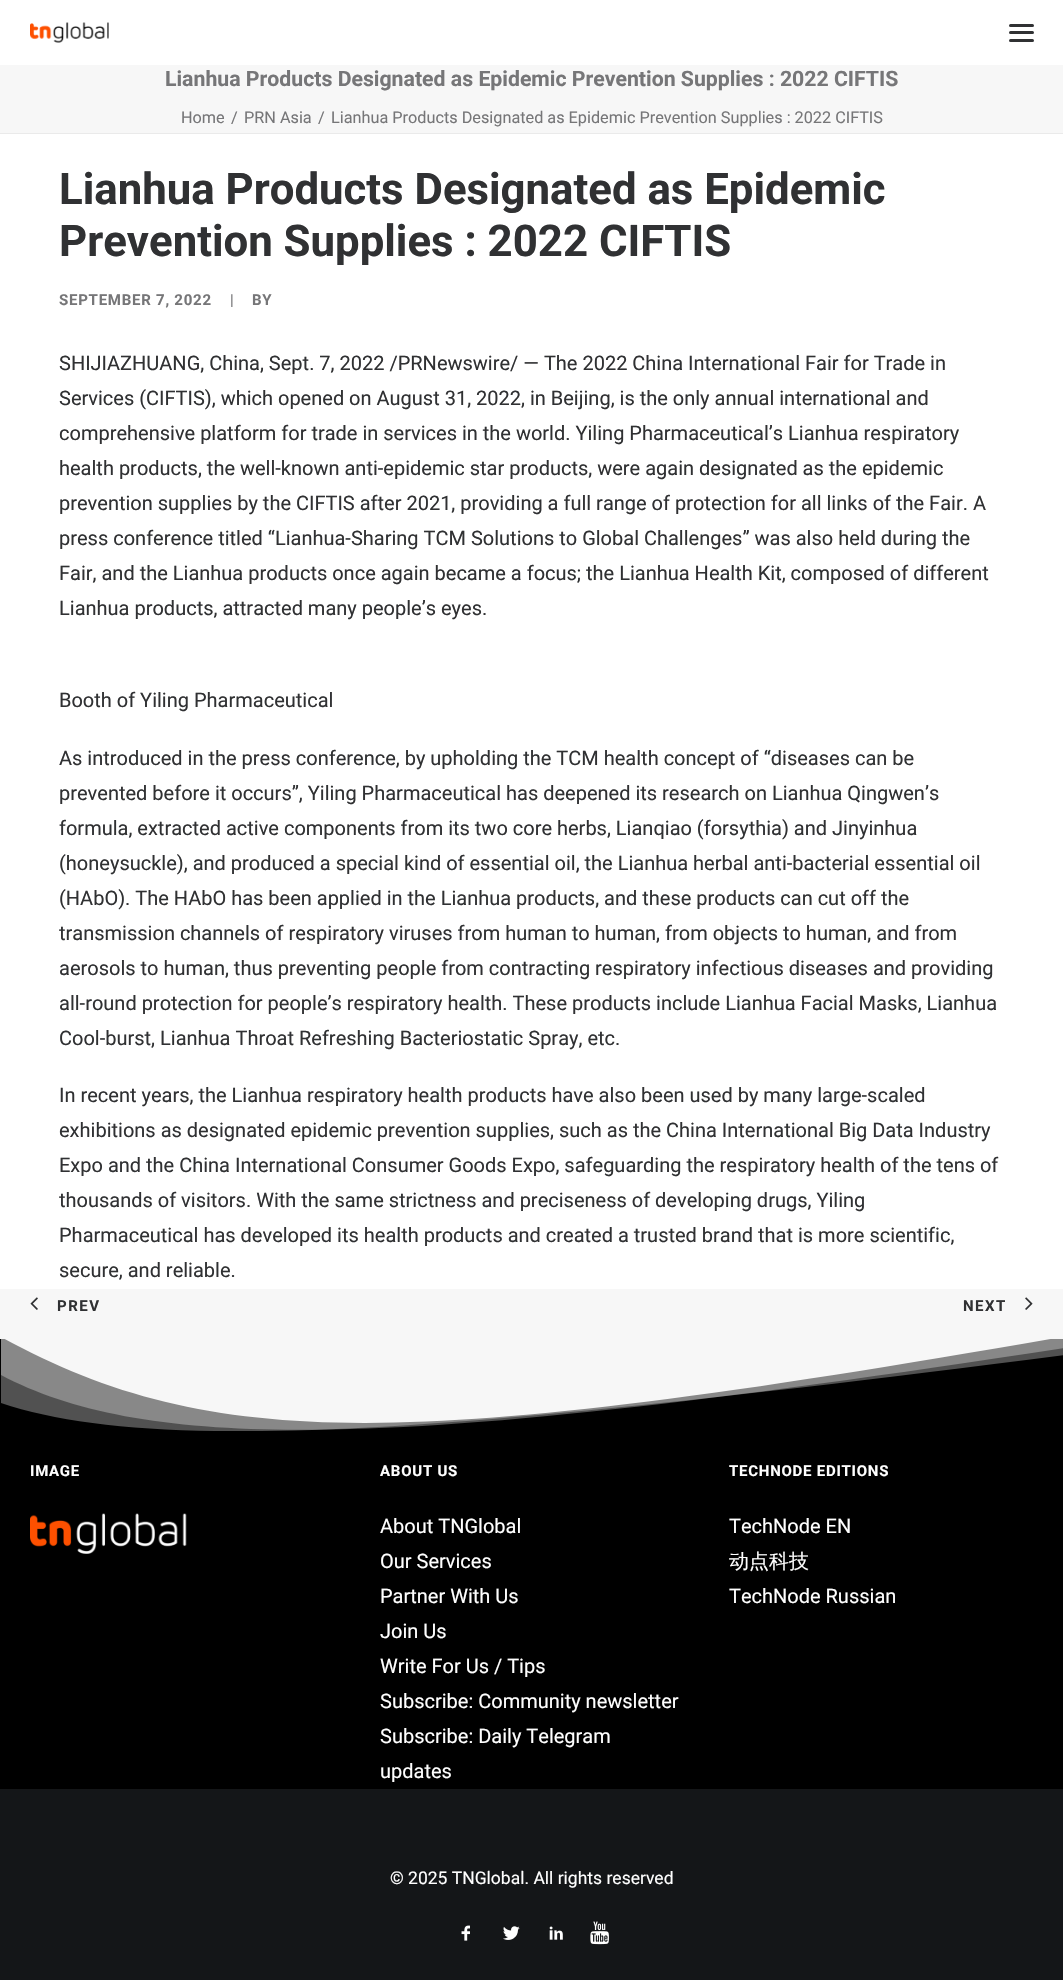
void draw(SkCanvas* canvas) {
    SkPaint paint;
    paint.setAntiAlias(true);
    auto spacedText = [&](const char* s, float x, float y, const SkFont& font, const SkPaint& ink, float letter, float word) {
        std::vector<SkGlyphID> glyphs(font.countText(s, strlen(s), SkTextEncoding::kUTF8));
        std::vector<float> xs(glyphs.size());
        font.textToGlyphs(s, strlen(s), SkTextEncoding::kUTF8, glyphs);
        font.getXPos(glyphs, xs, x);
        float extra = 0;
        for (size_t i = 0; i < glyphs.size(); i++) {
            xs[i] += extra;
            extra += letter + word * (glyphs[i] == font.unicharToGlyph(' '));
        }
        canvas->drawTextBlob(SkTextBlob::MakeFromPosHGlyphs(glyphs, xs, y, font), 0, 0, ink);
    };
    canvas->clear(0xFFF7F7F7);
    paint.setColor(0xFFFFFFFF);
    canvas->drawRect(SkRect::MakeXYWH(0, 0, 1063, 65), paint);
    canvas->drawImageRect(SkImages::DeferredFromEncodedData(SkData::MakeFromFileName("img1.png")), SkRect::MakeXYWH(30, 22, 79, 21), SkSamplingOptions());
    paint.setColor(0xFF303133);
    canvas->drawRoundRect(SkRect::MakeXYWH(1009, 31, 25, 3), 1.5f, 1.5f, paint);
    canvas->drawRoundRect(SkRect::MakeXYWH(1009, 24, 25, 3), 1.5f, 1.5f, paint);
    canvas->drawRoundRect(SkRect::MakeXYWH(1009, 39, 25, 3), 1.5f, 1.5f, paint);
    paint.setColor(0xFFEAEAEA);
    canvas->drawRect(SkRect::MakeXYWH(0, 133, 1063, 1), paint);
    SkFont font1(fontMgr->matchFamilyStyle("Roboto", SkFontStyle::Bold()), 21.25f);
    font1.setSubpixel(true);
    paint.setColor(0xFF767678);
    canvas->drawString("Lianhua Products Designated as Epidemic Prevention Supplies : 2022 CIFTIS", 165, 86, font1, paint);
    SkFont font2(fontMgr->matchFamilyStyle("Roboto", SkFontStyle::Normal()), 16.25f);
    font2.setSubpixel(true);
    canvas->drawString("Home", 181, 123, font2, paint);
    canvas->drawString("/", 231, 123, font2, paint);
    canvas->drawString("PRN Asia", 244, 123, font2, paint);
    canvas->drawString("/", 318, 123, font2, paint);
    canvas->drawString("Lianhua Products Designated as Epidemic Prevention Supplies : 2022 CIFTIS", 331, 123, font2, paint);
    paint.setColor(0xFFFFFFFF);
    canvas->drawRect(SkRect::MakeXYWH(0, 134, 1063, 1155), paint);
    SkFont font3(fontMgr->matchFamilyStyle("Roboto", SkFontStyle::Bold()), 43.75f);
    font3.setSubpixel(true);
    paint.setColor(0xFF303133);
    canvas->drawString("Lianhua Products Designated as Epidemic", 59, 204, font3, paint);
    canvas->drawString("Prevention Supplies : 2022 CIFTIS", 59, 256, font3, paint);
    SkFont font4(fontMgr->matchFamilyStyle("Roboto", SkFontStyle::Bold()), 15);
    font4.setSubpixel(true);
    paint.setColor(0xFF767678);
    spacedText("SEPTEMBER 7, 2022", 59, 305, font4, paint, 0.75f, 0);
    SkFont font5(fontMgr->matchFamilyStyle("Roboto", SkFontStyle::Normal()), 15);
    font5.setSubpixel(true);
    spacedText("|", 230, 305, font5, paint, 0.75f, 0);
    spacedText("BY", 252, 305, font4, paint, 0.75f, 0);
    SkFont font6(fontMgr->matchFamilyStyle("Roboto", SkFontStyle::Normal()), 20);
    font6.setSubpixel(true);
    paint.setColor(0xFF303133);
    canvas->drawString("SHIJIAZHUANG, China, Sept. 7, 2022 /PRNewswire/ — The 2022 China International Fair for Trade in", 59, 370, font6, paint);
    canvas->drawString("Services (CIFTIS), which opened on August 31, 2022, in Beijing, is the only annual international and", 59, 405, font6, paint);
    canvas->drawString("comprehensive platform for trade in services in the world. Yiling Pharmaceutical’s Lianhua respiratory", 59, 440, font6, paint);
    canvas->drawString("health products, the well-known anti-epidemic star products, were again designated as the epidemic", 59, 475, font6, paint);
    canvas->drawString("prevention supplies by the CIFTIS after 2021, providing a full range of protection for all links of the Fair. A", 59, 510, font6, paint);
    canvas->drawString("press conference titled “Lianhua-Sharing TCM Solutions to Global Challenges” was also held during the", 59, 545, font6, paint);
    canvas->drawString("Fair, and the Lianhua products once again became a focus; the Lianhua Health Kit, composed of different", 59, 580, font6, paint);
    canvas->drawString("Lianhua products, attracted many people’s eyes.", 59, 615, font6, paint);
    canvas->drawString("Booth of Yiling Pharmaceutical", 59, 707, font6, paint);
    canvas->drawString("As introduced in the press conference, by upholding the TCM health concept of “diseases can be", 59, 765, font6, paint);
    canvas->drawString("prevented before it occurs”, Yiling Pharmaceutical has deepened its research on Lianhua Qingwen’s", 59, 800, font6, paint);
    canvas->drawString("formula, extracted active components from its two core herbs, Lianqiao (forsythia) and Jinyinhua", 59, 835, font6, paint);
    canvas->drawString("(honeysuckle), and produced a special kind of essential oil, the Lianhua herbal anti-bacterial essential oil", 59, 870, font6, paint);
    canvas->drawString("(HAbO). The HAbO has been applied in the Lianhua products, and these products can cut off the", 59, 905, font6, paint);
    canvas->drawString("transmission channels of respiratory viruses from human to human, from objects to human, and from", 59, 940, font6, paint);
    canvas->drawString("aerosols to human, thus preventing people from contracting respiratory infectious diseases and providing", 59, 975, font6, paint);
    canvas->drawString("all-round protection for people’s respiratory health. These products include Lianhua Facial Masks, Lianhua", 59, 1010, font6, paint);
    canvas->drawString("Cool-burst, Lianhua Throat Refreshing Bacteriostatic Spray, etc.", 59, 1045, font6, paint);
    canvas->drawString("In recent years, the Lianhua respiratory health products have also been used by many large-scaled", 59, 1102, font6, paint);
    canvas->drawString("exhibitions as designated epidemic prevention supplies, such as the China International Big Data Industry", 59, 1137, font6, paint);
    canvas->drawString("Expo and the China International Consumer Goods Expo, safeguarding the respiratory health of the tens of", 59, 1172, font6, paint);
    canvas->drawString("thousands of visitors. With the same strictness and preciseness of developing drugs, Yiling", 59, 1207, font6, paint);
    canvas->drawString("Pharmaceutical has developed its health products and created a trusted brand that is more scientific,", 59, 1242, font6, paint);
    canvas->drawString("secure, and reliable.", 59, 1277, font6, paint);
    canvas->drawImageRect(SkImages::DeferredFromEncodedData(SkData::MakeFromFileName("img2.png")), SkRect::MakeXYWH(30, 1297, 8, 13), SkSamplingOptions());
    spacedText("PREV", 57, 1311, font4, paint, 1.5f, 0);
    spacedText("NEXT", 963, 1311, font4, paint, 1.5f, 0);
    canvas->drawImageRect(SkImages::DeferredFromEncodedData(SkData::MakeFromFileName("img3.png")), SkRect::MakeXYWH(1025, 1297, 8, 13), SkSamplingOptions());
    paint.setColor(0xFF000000);
    canvas->drawRect(SkRect::MakeXYWH(0, 1339, 1063, 450), paint);
    canvas->save();
    canvas->clipRect(SkRect::MakeXYWH(0, 1338, 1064, 93));
    paint.setColor(0x54F7F7F7);
    canvas->drawPath(SkPathBuilder().moveTo(1, 1403).lineTo(1, 1337).lineTo(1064, 1337).lineTo(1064, 1355).cubicTo(434, 1436, 150, 1453, 1, 1403).close().detach(), paint);
    canvas->drawPath(SkPathBuilder().moveTo(1, 1375).lineTo(1, 1337).lineTo(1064, 1337).lineTo(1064, 1348).cubicTo(424, 1446, 156, 1457, 1, 1375).close().detach(), paint);
    paint.setColor(0xFFF7F7F7);
    canvas->drawPath(SkPathBuilder().moveTo(1, 1337).cubicTo(213, 1453, 413, 1450, 1062, 1337).close().detach(), paint);
    canvas->restore();
    paint.setColor(0xFFFFFFFF);
    spacedText("IMAGE", 30, 1476, font4, paint, 0.75f, 0);
    canvas->drawImageRect(SkImages::DeferredFromEncodedData(SkData::MakeFromFileName("img4.png")), SkRect::MakeXYWH(30, 1513, 157, 41), SkSamplingOptions());
    spacedText("ABOUT US", 380, 1476, font4, paint, 0.75f, 0);
    canvas->drawString("About TNGlobal", 380, 1533, font6, paint);
    canvas->drawString("Our Services", 380, 1568, font6, paint);
    canvas->drawString("Partner With Us", 380, 1603, font6, paint);
    canvas->drawString("Join Us", 380, 1638, font6, paint);
    canvas->drawString("Write For Us / Tips", 380, 1673, font6, paint);
    canvas->drawString("Subscribe: Community newsletter", 380, 1708, font6, paint);
    canvas->drawString("Subscribe: Daily Telegram", 380, 1743, font6, paint);
    canvas->drawString("updates", 380, 1778, font6, paint);
    spacedText("TECHNODE EDITIONS", 729, 1476, font4, paint, 0.75f, 0);
    canvas->drawString("TechNode EN", 729, 1533, font6, paint);
    SkFont font7(fontMgr->matchFamilyStyle("WenQuanYi Zen Hei", SkFontStyle(500, SkFontStyle::kNormal_Width, SkFontStyle::kUpright_Slant)), 20);
    font7.setSubpixel(true);
    canvas->drawString("动点科技", 729, 1568, font7, paint);
    canvas->drawString("TechNode Russian", 729, 1603, font6, paint);
    paint.setColor(0xFF141618);
    canvas->drawRect(SkRect::MakeXYWH(0, 1789, 1063, 191), paint);
    SkFont font8(fontMgr->matchFamilyStyle("Roboto", SkFontStyle::Normal()), 17.5f);
    font8.setSubpixel(true);
    paint.setColor(0xFFFFFFFF);
    canvas->drawString("© 2025 TNGlobal. All rights reserved", 390, 1884, font8, paint);
    canvas->drawImageRect(SkImages::DeferredFromEncodedData(SkData::MakeFromFileName("img5.png")), SkRect::MakeXYWH(461, 1925, 9, 16), SkSamplingOptions());
    canvas->drawImageRect(SkImages::DeferredFromEncodedData(SkData::MakeFromFileName("img6.png")), SkRect::MakeXYWH(503, 1926, 17, 14), SkSamplingOptions());
    canvas->drawImageRect(SkImages::DeferredFromEncodedData(SkData::MakeFromFileName("img7.png")), SkRect::MakeXYWH(549, 1926, 14, 14), SkSamplingOptions());
    canvas->drawImageRect(SkImages::DeferredFromEncodedData(SkData::MakeFromFileName("img8.png")), SkRect::MakeXYWH(590, 1921, 19, 24), SkSamplingOptions());
}
